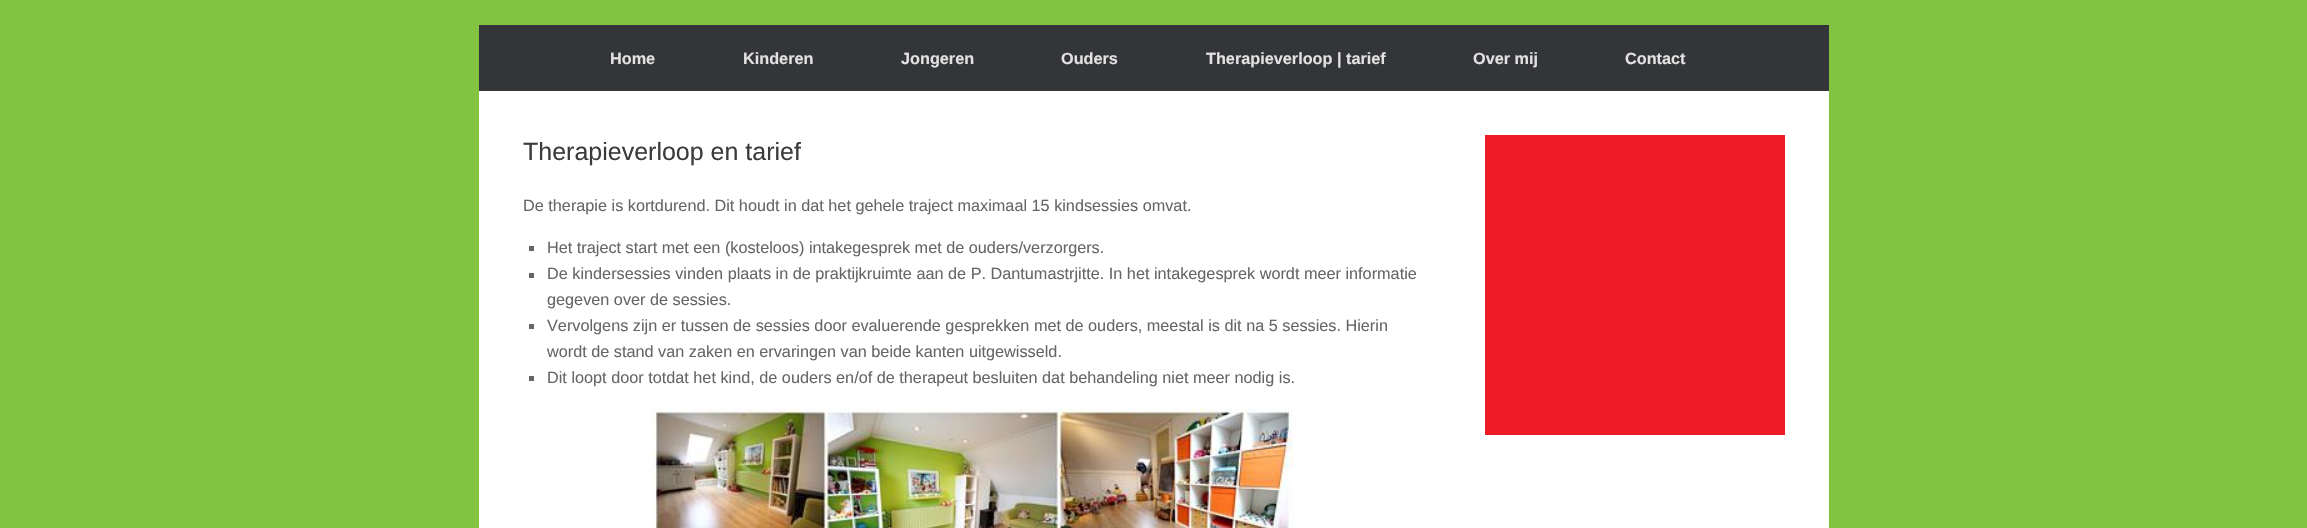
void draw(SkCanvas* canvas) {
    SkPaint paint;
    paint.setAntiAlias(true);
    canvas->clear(0xFF82C341);
    paint.setColor(0xFF343538);
    canvas->drawRect(SkRect::MakeXYWH(479, 25, 1350, 66), paint);
    SkFont font1(fontMgr->matchFamilyStyle("Liberation Sans", SkFontStyle::Bold()), 16.25f);
    font1.setSubpixel(true);
    paint.setColor(0xFFE2E2E2);
    canvas->drawString("Home", 610, 64, font1, paint);
    canvas->drawString("Kinderen", 743, 64, font1, paint);
    canvas->drawString("Jongeren", 901, 64, font1, paint);
    canvas->drawString("Ouders", 1061, 64, font1, paint);
    canvas->drawString("Therapieverloop | tarief", 1206, 64, font1, paint);
    canvas->drawString("Over mij", 1473, 64, font1, paint);
    canvas->drawString("Contact", 1625, 64, font1, paint);
    paint.setColor(0xFFFFFFFF);
    canvas->drawRect(SkRect::MakeXYWH(479, 91, 1350, 437), paint);
    SkFont font2(fontMgr->matchFamilyStyle("Liberation Sans", SkFontStyle::Normal()), 25);
    font2.setSubpixel(true);
    paint.setColor(0xFF3B3B3B);
    canvas->drawString("Therapieverloop en tarief", 523, 160, font2, paint);
    SkFont font3(fontMgr->matchFamilyStyle("Liberation Sans", SkFontStyle::Normal()), 16.25f);
    font3.setSubpixel(true);
    paint.setColor(0xFF666666);
    canvas->drawString("De therapie is kortdurend. Dit houdt in dat het gehele traject maximaal 15 kindsessies omvat.", 523, 211, font3, paint);
    canvas->drawRect(SkRect::MakeXYWH(529, 246, 5, 5), paint);
    canvas->drawString("Het traject start met een (kosteloos) intakegesprek met de ouders/verzorgers.", 547, 253, font3, paint);
    canvas->drawRect(SkRect::MakeXYWH(529, 273, 5, 5), paint);
    canvas->drawString("De kindersessies vinden plaats in de praktijkruimte aan de P. Dantumastrjitte. In het intakegesprek wordt meer informatie", 547, 279, font3, paint);
    canvas->drawString("gegeven over de sessies.", 547, 305, font3, paint);
    canvas->drawRect(SkRect::MakeXYWH(529, 324, 5, 5), paint);
    canvas->drawString("Vervolgens zijn er tussen de sessies door evaluerende gesprekken met de ouders, meestal is dit na 5 sessies. Hierin", 547, 331, font3, paint);
    canvas->drawString("wordt de stand van zaken en ervaringen van beide kanten uitgewisseld.", 547, 357, font3, paint);
    canvas->drawRect(SkRect::MakeXYWH(529, 376, 5, 5), paint);
    canvas->drawString("Dit loopt door totdat het kind, de ouders en/of de therapeut besluiten dat behandeling niet meer nodig is.", 547, 383, font3, paint);
    canvas->drawImageRect(SkImages::DeferredFromEncodedData(SkData::MakeFromFileName("img1.png")), SkRect::MakeXYWH(652, 408, 641, 120), SkSamplingOptions());
    paint.setColor(0xFFEE1C27);
    canvas->drawRect(SkRect::MakeXYWH(1485, 135, 300, 300), paint);
}
